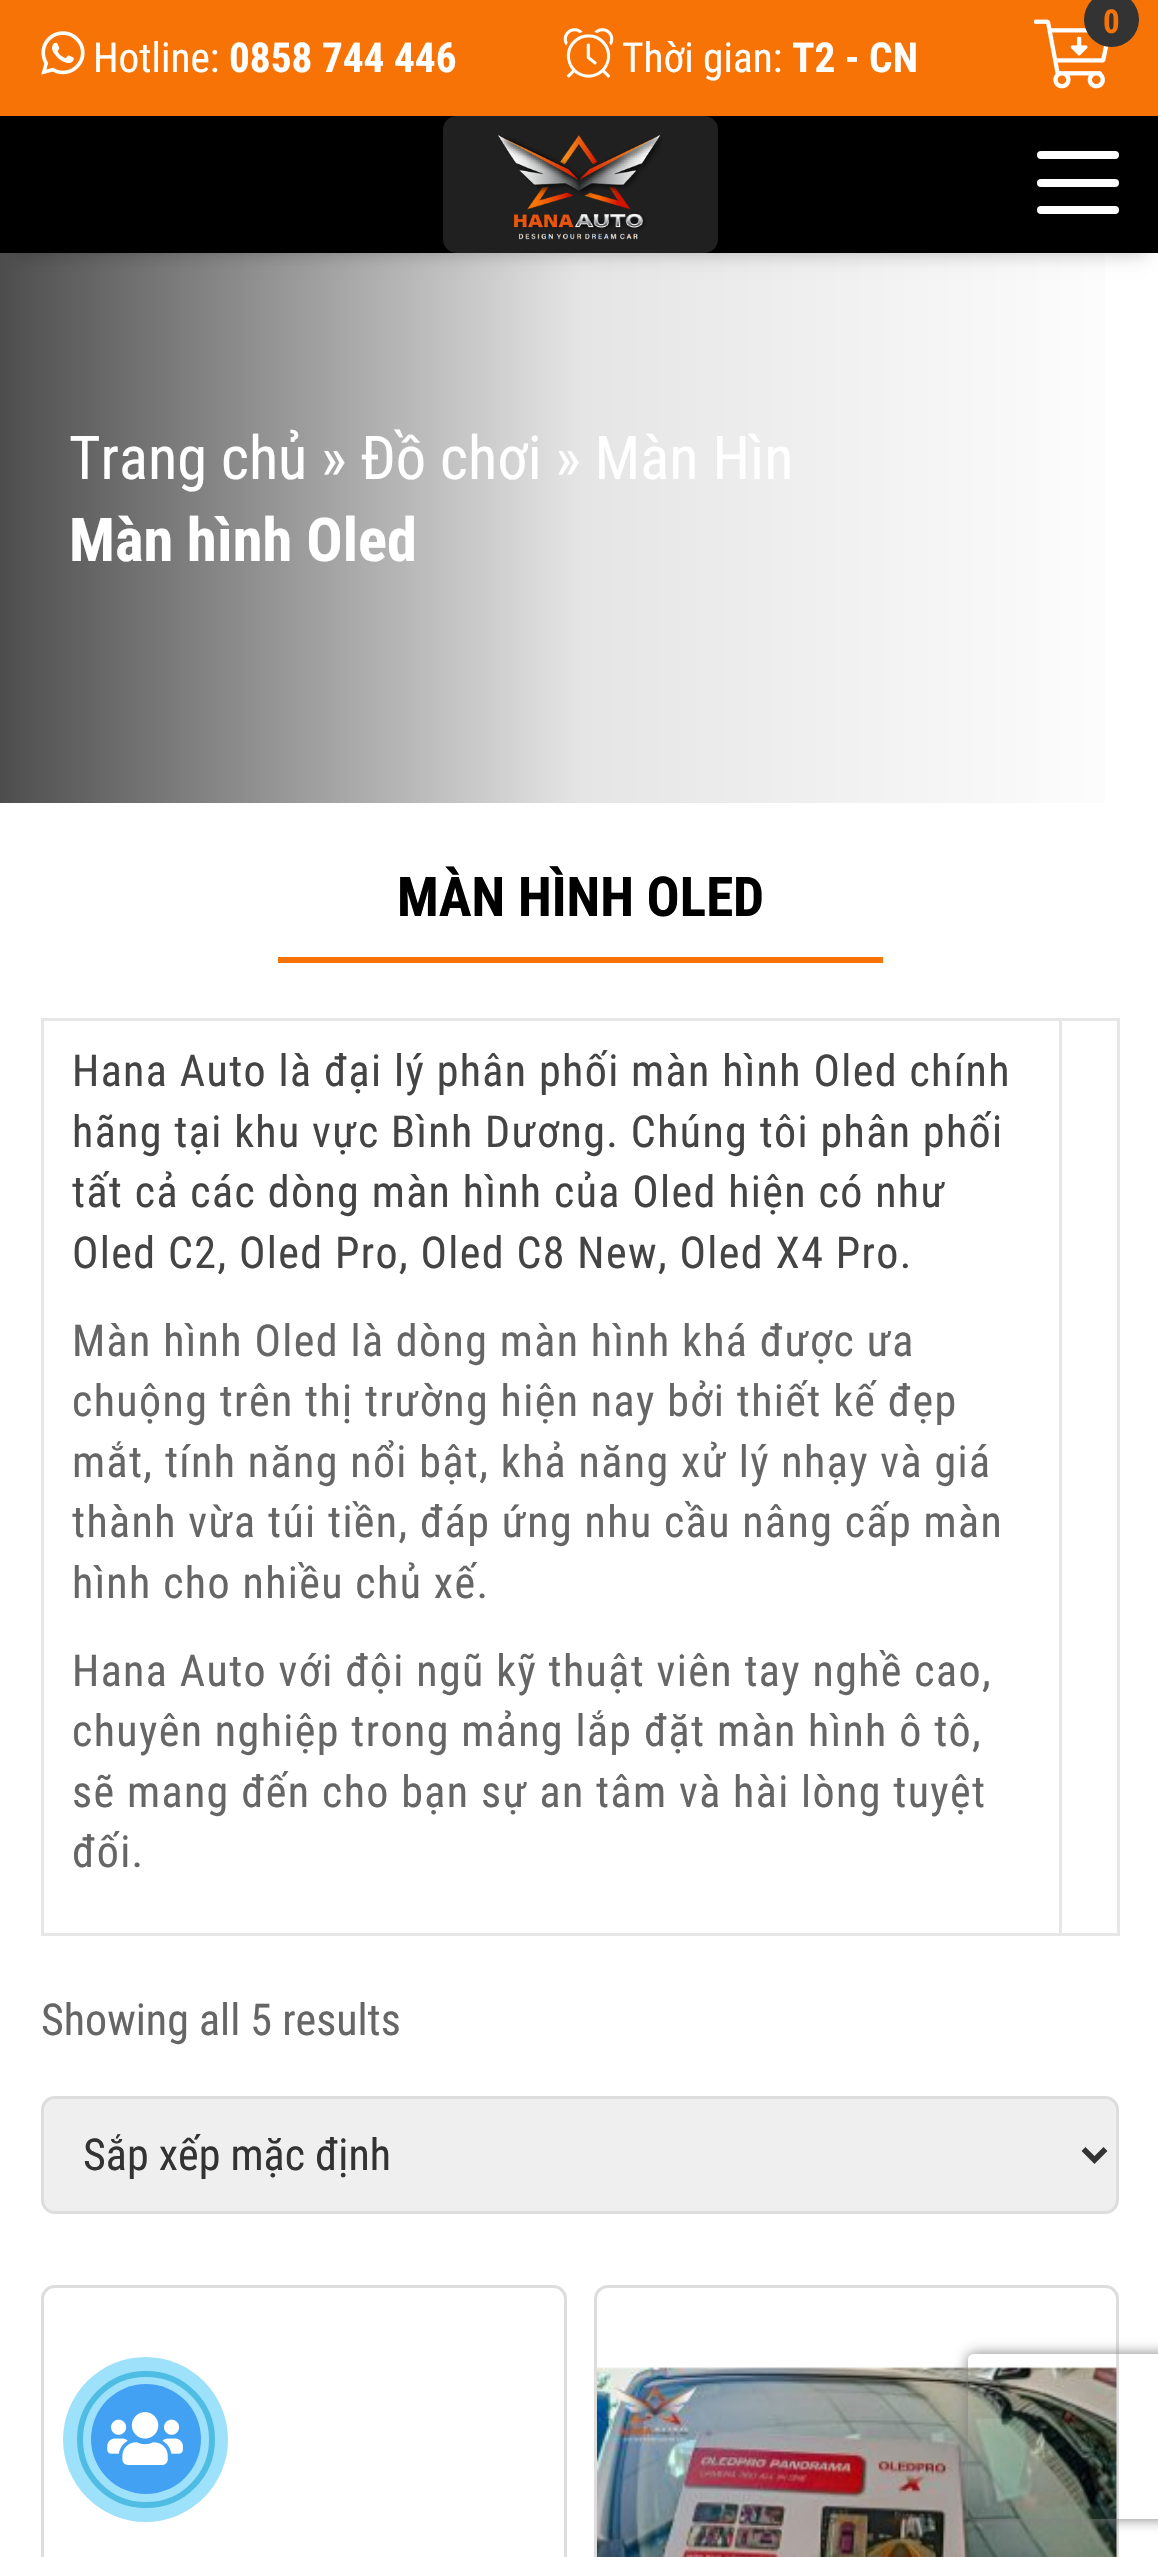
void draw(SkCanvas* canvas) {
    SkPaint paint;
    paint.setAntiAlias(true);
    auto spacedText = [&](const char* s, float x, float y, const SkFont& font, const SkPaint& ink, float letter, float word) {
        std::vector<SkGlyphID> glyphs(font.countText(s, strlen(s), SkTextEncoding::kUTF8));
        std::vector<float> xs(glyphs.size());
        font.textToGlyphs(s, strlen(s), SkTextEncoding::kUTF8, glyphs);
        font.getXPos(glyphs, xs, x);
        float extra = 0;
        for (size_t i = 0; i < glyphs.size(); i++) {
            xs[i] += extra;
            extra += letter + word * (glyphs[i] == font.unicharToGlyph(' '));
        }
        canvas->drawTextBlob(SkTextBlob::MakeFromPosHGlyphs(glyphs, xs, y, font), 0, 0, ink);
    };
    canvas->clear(0xFFFFFFFF);
    paint.setColor(0xFFF87306);
    canvas->drawRect(SkRect::MakeXYWH(0, 0, 1158, 116), paint);
    canvas->drawImageRect(SkImages::DeferredFromEncodedData(SkData::MakeFromFileName("img1.png")), SkRect::MakeXYWH(1034, 19, 75, 70), SkSamplingOptions());
    paint.setColor(0xFF333333);
    canvas->drawCircle(1111.5f, 19.5f, 27.5f, paint);
    SkFont font1(fontMgr->matchFamilyStyle("Roboto Condensed", SkFontStyle::Bold()), 33);
    font1.setSubpixel(true);
    paint.setColor(0xFFF87306);
    canvas->drawString("0", 1103, 33, font1, paint);
    canvas->drawImageRect(SkImages::DeferredFromEncodedData(SkData::MakeFromFileName("img2.png")), SkRect::MakeXYWH(41, 31, 44, 44), SkSamplingOptions());
    SkFont font2(fontMgr->matchFamilyStyle("Roboto Condensed", SkFontStyle::Normal()), 41.25f);
    font2.setSubpixel(true);
    paint.setColor(0xFFFFFFFF);
    canvas->drawString("Hotline:", 93, 72, font2, paint);
    SkFont font3(fontMgr->matchFamilyStyle("Roboto Condensed", SkFontStyle::Bold()), 41.25f);
    font3.setSubpixel(true);
    canvas->drawString("0858 744 446", 229, 72, font3, paint);
    canvas->drawImageRect(SkImages::DeferredFromEncodedData(SkData::MakeFromFileName("img3.png")), SkRect::MakeXYWH(563, 28, 51, 50), SkSamplingOptions());
    canvas->drawString("Thời gian:", 622, 72, font2, paint);
    canvas->drawString("T2 - CN", 792, 72, font3, paint);
    {
        const SkColor colors[] = {0xFF4D4D4D, 0xFFE5E5E5, 0xFFFFFFFF};
        const float stops[] = {0, 0.5f, 1};
        const SkPoint ends[] = {{0, 528}, {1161, 528}};
        paint.setShader(SkGradientShader::MakeLinear(ends, colors, stops, 3, SkTileMode::kClamp));
        paint.setAlpha(255);
    }
    canvas->drawRect(SkRect::MakeXYWH(0, 253, 1105, 550), paint);
    paint.setShader(nullptr);
    paint.setColor(0x2E000000);
    paint.setMaskFilter(SkMaskFilter::MakeBlur(kNormal_SkBlurStyle, 8));
    canvas->drawRect(SkRect::MakeXYWH(14, 146, 1133, 110), paint);
    paint.setMaskFilter(nullptr);
    paint.setColor(0xFF000000);
    canvas->drawRect(SkRect::MakeXYWH(0, 116, 1158, 137), paint);
    paint.setColor(0xFF202020);
    canvas->drawRoundRect(SkRect::MakeXYWH(443, 116, 275, 137), 14, 14, paint);
    canvas->drawImageRect(SkImages::DeferredFromEncodedData(SkData::MakeFromFileName("img4.png")), SkRect::MakeXYWH(498, 134, 164, 106), SkSamplingOptions());
    paint.setColor(0xFFFFFFFF);
    canvas->drawRoundRect(SkRect::MakeXYWH(1037, 206, 82, 8), 4, 4, paint);
    canvas->drawRoundRect(SkRect::MakeXYWH(1037, 151, 82, 8), 4, 4, paint);
    canvas->drawRoundRect(SkRect::MakeXYWH(1037, 179, 82, 8), 4, 4, paint);
    SkFont font4(fontMgr->matchFamilyStyle("Roboto Condensed", SkFontStyle::Normal()), 60.5f);
    font4.setSubpixel(true);
    canvas->drawString("Trang chủ » Đồ chơi » Màn Hìn", 69, 479, font4, paint);
    SkFont font5(fontMgr->matchFamilyStyle("Roboto Condensed", SkFontStyle::Bold()), 60.5f);
    font5.setSubpixel(true);
    canvas->drawString("Màn hình Oled", 69, 561, font5, paint);
    SkFont font6(fontMgr->matchFamilyStyle("Roboto Condensed", SkFontStyle::Bold()), 55);
    font6.setSubpixel(true);
    paint.setColor(0xFF010000);
    canvas->drawString("MÀN HÌNH OLED", 397, 916, font6, paint);
    paint.setColor(0xFFF87306);
    canvas->drawRect(SkRect::MakeXYWH(278, 957, 605, 6), paint);
    paint.setColor(0xFFE8E7E7);
    canvas->drawRect(SkRect::MakeXYWH(1059, 1018, 60, 3), paint);
    canvas->drawRect(SkRect::MakeXYWH(1117, 1018, 3, 918), paint);
    canvas->drawRect(SkRect::MakeXYWH(1059, 1933, 60, 3), paint);
    canvas->drawRect(SkRect::MakeXYWH(1059, 1018, 3, 918), paint);
    canvas->drawRect(SkRect::MakeXYWH(41, 1018, 1021, 3), paint);
    canvas->drawRect(SkRect::MakeXYWH(41, 1933, 1021, 3), paint);
    canvas->drawRect(SkRect::MakeXYWH(41, 1018, 3, 918), paint);
    SkFont font7(fontMgr->matchFamilyStyle("Roboto Condensed", SkFontStyle::Normal()), 44);
    font7.setSubpixel(true);
    paint.setColor(0xFF444444);
    spacedText("Hana Auto là đại lý phân phối màn hình Oled chính", 72, 1086, font7, paint, 1.38f, 0);
    spacedText("hãng tại khu vực Bình Dương. Chúng tôi phân phối", 72, 1147, font7, paint, 1.38f, 0);
    spacedText("tất cả các dòng màn hình của Oled hiện có như", 72, 1207, font7, paint, 1.38f, 0);
    spacedText("Oled C2, Oled Pro, Oled C8 New, Oled X4 Pro.", 72, 1268, font7, paint, 1.38f, 0);
    paint.setColor(0xFF666666);
    spacedText("Màn hình Oled là dòng màn hình khá được ưa", 72, 1356, font7, paint, 1.38f, 0);
    spacedText("chuộng trên thị trường hiện nay bởi thiết kế đẹp", 72, 1416, font7, paint, 1.38f, 0);
    spacedText("mắt, tính năng nổi bật, khả năng xử lý nhạy và giá", 72, 1477, font7, paint, 1.38f, 0);
    spacedText("thành vừa túi tiền, đáp ứng nhu cầu nâng cấp màn", 72, 1537, font7, paint, 1.38f, 0);
    spacedText("hình cho nhiều chủ xế.", 72, 1598, font7, paint, 1.38f, 0);
    spacedText("Hana Auto với đội ngũ kỹ thuật viên tay nghề cao,", 72, 1686, font7, paint, 1.38f, 0);
    spacedText("chuyên nghiệp trong mảng lắp đặt màn hình ô tô,", 72, 1746, font7, paint, 1.38f, 0);
    spacedText("sẽ mang đến cho bạn sự an tâm và hài lòng tuyệt", 72, 1807, font7, paint, 1.38f, 0);
    spacedText("đối.", 72, 1867, font7, paint, 1.38f, 0);
    canvas->drawString("Showing all 5 results", 41, 2035, font7, paint);
    paint.setColor(0xFFEFEFEF);
    canvas->drawRoundRect(SkRect::MakeXYWH(42.5f, 2097.5f, 1075, 115), 12.5f, 12.5f, paint);
    paint.setStyle(SkPaint::kStroke_Style);
    paint.setStrokeWidth(3);
    paint.setColor(0xFFDDDDDD);
    canvas->drawRoundRect(SkRect::MakeXYWH(42.5f, 2097.5f, 1075, 115), 12.5f, 12.5f, paint);
    paint.setStrokeWidth(5.5f);
    paint.setColor(0xFF333333);
    canvas->drawPath(SkPathBuilder().moveTo(1083.5f, 2149).lineTo(1094.5f, 2160).lineTo(1105.5f, 2149).detach(), paint);
    paint.setStyle(SkPaint::kFill_Style);
    canvas->drawString("Sắp xếp mặc định", 83, 2170, font7, paint);
    paint.setStyle(SkPaint::kStroke_Style);
    paint.setStrokeWidth(3);
    paint.setColor(0xFFDDDDDD);
    canvas->drawRoundRect(SkRect::MakeXYWH(42.5f, 2286.5f, 523, 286), 12.5f, 12.5f, paint);
    canvas->drawRoundRect(SkRect::MakeXYWH(595.5f, 2286.5f, 522, 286), 12.5f, 12.5f, paint);
    canvas->drawImageRect(SkImages::DeferredFromEncodedData(SkData::MakeFromFileName("img5.png")), SkRect::MakeXYWH(597, 2366, 520, 191), SkSamplingOptions());
    paint.setStrokeWidth(6);
    paint.setColor(0xFF80C4DC);
    canvas->drawRoundRect(SkRect::MakeXYWH(80, 2374, 132, 131), 65.5f, 65.5f, paint);
    paint.setStyle(SkPaint::kFill_Style);
    paint.setColor(0x6100AFF2);
    canvas->drawCircle(145.5f, 2439.5f, 82.5f, paint);
    paint.setColor(0xFF43A1F3);
    canvas->drawCircle(146, 2439, 55, paint);
    canvas->drawImageRect(SkImages::DeferredFromEncodedData(SkData::MakeFromFileName("img6.png")), SkRect::MakeXYWH(107, 2412, 76, 53), SkSamplingOptions());
    canvas->save();
    canvas->clipPath(SkPathBuilder(SkPathFillType::kEvenOdd).moveTo(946, 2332).lineTo(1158, 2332).lineTo(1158, 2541).lineTo(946, 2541).close().moveTo(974, 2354).lineTo(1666, 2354).cubicTo(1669.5f, 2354, 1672, 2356.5f, 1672, 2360).lineTo(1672, 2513).cubicTo(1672, 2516.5f, 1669.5f, 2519, 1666, 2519).lineTo(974, 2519).cubicTo(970.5f, 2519, 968, 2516.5f, 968, 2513).lineTo(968, 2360).cubicTo(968, 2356.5f, 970.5f, 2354, 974, 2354).close().detach(), true);
    paint.setColor(0xFF808080);
    paint.setMaskFilter(SkMaskFilter::MakeBlur(kNormal_SkBlurStyle, 7));
    canvas->drawRoundRect(SkRect::MakeXYWH(968, 2354, 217, 165), 6, 6, paint);
    paint.setMaskFilter(nullptr);
    canvas->restore();
}
